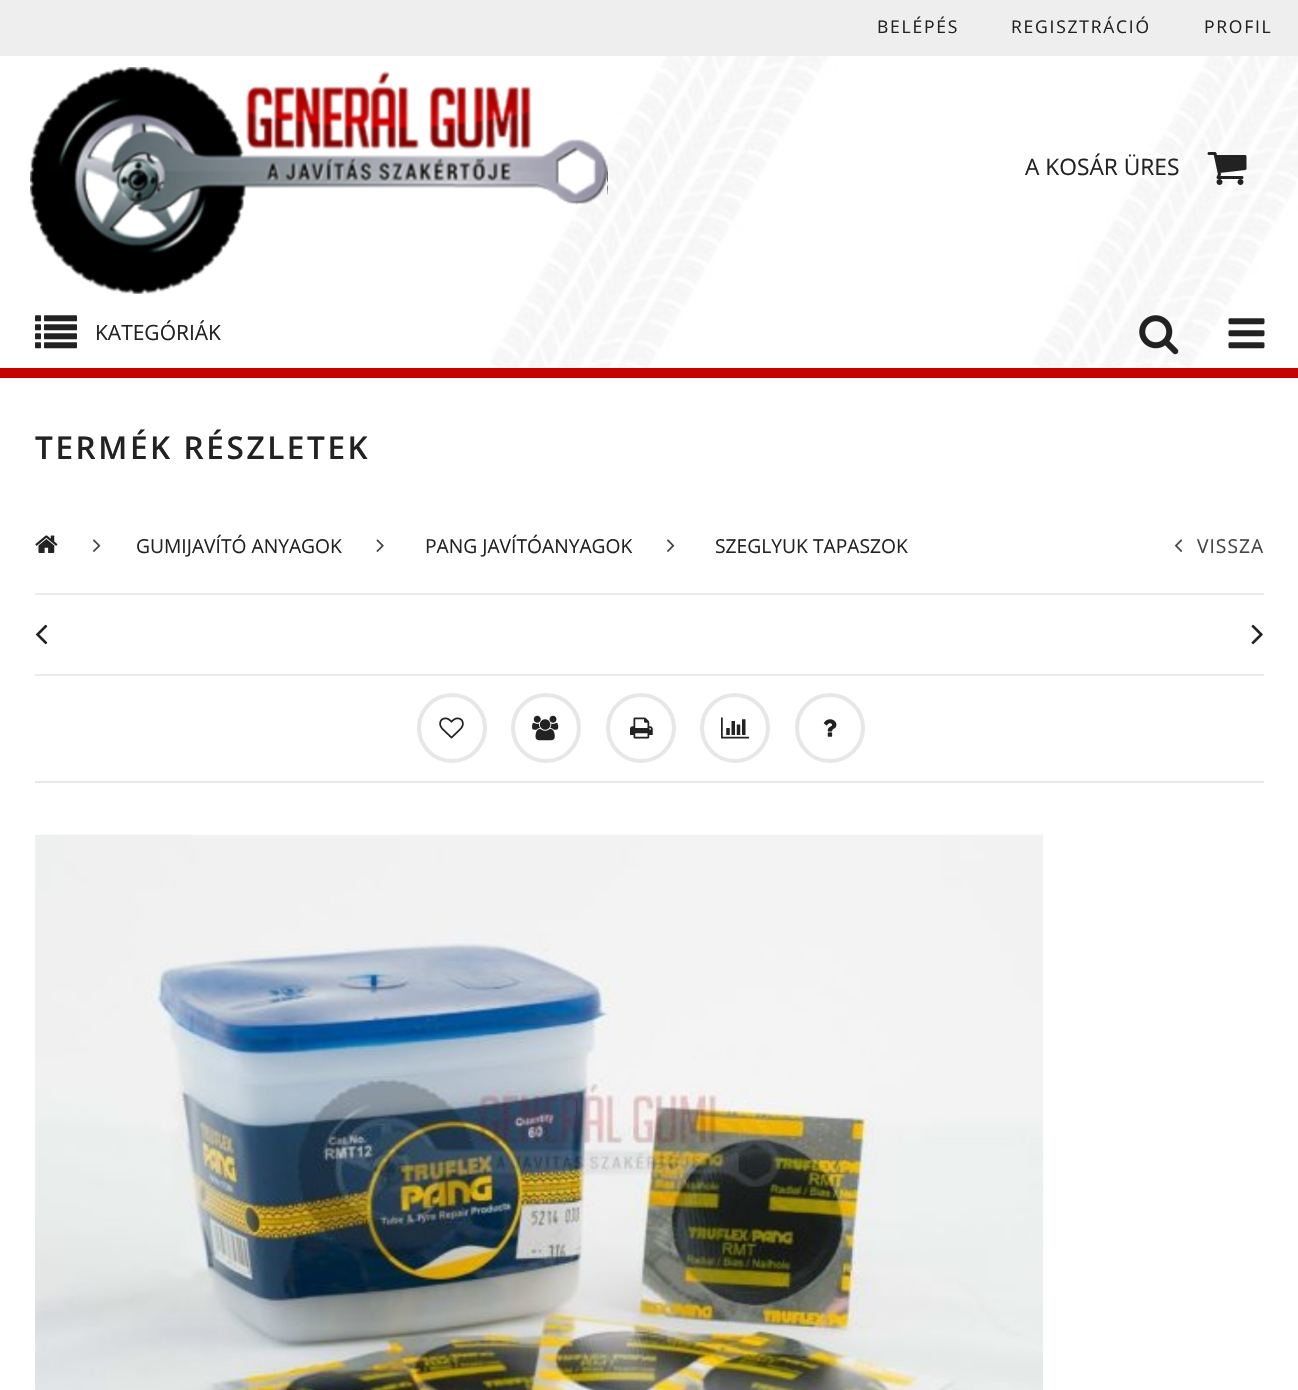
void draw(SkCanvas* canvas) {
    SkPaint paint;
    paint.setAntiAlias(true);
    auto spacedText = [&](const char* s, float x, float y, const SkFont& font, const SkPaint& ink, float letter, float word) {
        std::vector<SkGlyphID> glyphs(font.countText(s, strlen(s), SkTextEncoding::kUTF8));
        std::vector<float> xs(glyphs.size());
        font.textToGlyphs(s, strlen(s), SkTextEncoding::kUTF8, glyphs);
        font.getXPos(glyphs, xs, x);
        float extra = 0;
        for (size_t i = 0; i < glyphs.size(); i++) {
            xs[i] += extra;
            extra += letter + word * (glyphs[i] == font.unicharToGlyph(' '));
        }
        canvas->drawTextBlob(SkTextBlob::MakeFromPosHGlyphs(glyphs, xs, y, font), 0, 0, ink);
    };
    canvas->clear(0xFFFFFFFF);
    canvas->drawImageRect(SkImages::DeferredFromEncodedData(SkData::MakeFromFileName("img1.png")), SkRect::MakeXYWH(490, 56, 808, 312), SkSamplingOptions());
    paint.setColor(0xFFEEEEEE);
    canvas->drawRect(SkRect::MakeXYWH(0, 0, 1298, 56), paint);
    SkFont font1(fontMgr->matchFamilyStyle("Open Sans", SkFontStyle::Normal()), 17.5f);
    font1.setSubpixel(true);
    paint.setColor(0xFF222222);
    spacedText("BELÉPÉS", 877, 33, font1, paint, 1.75f, 0);
    spacedText("REGISZTRÁCIÓ", 1011, 33, font1, paint, 1.75f, 0);
    spacedText("PROFIL", 1204, 33, font1, paint, 1.75f, 0);
    canvas->drawImageRect(SkImages::DeferredFromEncodedData(SkData::MakeFromFileName("img2.png")), SkRect::MakeXYWH(30, 67, 578, 227), SkSamplingOptions());
    canvas->drawImageRect(SkImages::DeferredFromEncodedData(SkData::MakeFromFileName("img3.png")), SkRect::MakeXYWH(607, 170, 1, 25), SkSamplingOptions());
    SkFont font2(fontMgr->matchFamilyStyle("Open Sans", SkFontStyle::Normal()), 22.75f);
    font2.setSubpixel(true);
    canvas->drawString("A KOSÁR ÜRES", 1025, 175, font2, paint);
    canvas->drawImageRect(SkImages::DeferredFromEncodedData(SkData::MakeFromFileName("img4.png")), SkRect::MakeXYWH(1207, 152, 40, 33), SkSamplingOptions());
    paint.setColor(0xFFC60000);
    canvas->drawRect(SkRect::MakeXYWH(0, 368, 1298, 10), paint);
    canvas->drawImageRect(SkImages::DeferredFromEncodedData(SkData::MakeFromFileName("img5.png")), SkRect::MakeXYWH(35, 315, 42, 34), SkSamplingOptions());
    SkFont font3(fontMgr->matchFamilyStyle("Open Sans", SkFontStyle::Normal()), 21);
    font3.setSubpixel(true);
    paint.setColor(0xFF222222);
    canvas->drawString("KATEGÓRIÁK", 95, 340, font3, paint);
    canvas->drawImageRect(SkImages::DeferredFromEncodedData(SkData::MakeFromFileName("img6.png")), SkRect::MakeXYWH(1139, 315, 40, 40), SkSamplingOptions());
    canvas->drawImageRect(SkImages::DeferredFromEncodedData(SkData::MakeFromFileName("img7.png")), SkRect::MakeXYWH(1228, 318, 37, 31), SkSamplingOptions());
    SkFont font4(fontMgr->matchFamilyStyle("Open Sans", SkFontStyle(600, SkFontStyle::kNormal_Width, SkFontStyle::kUpright_Slant)), 31.5f);
    font4.setSubpixel(true);
    spacedText("TERMÉK RÉSZLETEK", 35, 459, font4, paint, 2.6f, 0);
    canvas->drawImageRect(SkImages::DeferredFromEncodedData(SkData::MakeFromFileName("img8.png")), SkRect::MakeXYWH(35, 535, 23, 18), SkSamplingOptions());
    canvas->drawImageRect(SkImages::DeferredFromEncodedData(SkData::MakeFromFileName("img9.png")), SkRect::MakeXYWH(93, 539, 8, 13), SkSamplingOptions());
    SkFont font5(fontMgr->matchFamilyStyle("Open Sans", SkFontStyle::Normal()), 19.25f);
    font5.setSubpixel(true);
    canvas->drawString("GUMIJAVÍTÓ ANYAGOK", 136, 553, font5, paint);
    canvas->drawImageRect(SkImages::DeferredFromEncodedData(SkData::MakeFromFileName("img10.png")), SkRect::MakeXYWH(376, 539, 8, 13), SkSamplingOptions());
    canvas->drawString("PANG JAVÍTÓANYAGOK", 425, 553, font5, paint);
    canvas->drawImageRect(SkImages::DeferredFromEncodedData(SkData::MakeFromFileName("img9.png")), SkRect::MakeXYWH(667, 539, 8, 13), SkSamplingOptions());
    canvas->drawString("SZEGLYUK TAPASZOK", 715, 553, font5, paint);
    canvas->drawImageRect(SkImages::DeferredFromEncodedData(SkData::MakeFromFileName("img11.png")), SkRect::MakeXYWH(1174, 539, 9, 13), SkSamplingOptions());
    paint.setColor(0xFF444444);
    spacedText("VISSZA", 1197, 553, font5, paint, 1, 0);
    paint.setColor(0xFFECEAEA);
    canvas->drawRect(SkRect::MakeXYWH(35, 593, 1229, 2), paint);
    canvas->drawImageRect(SkImages::DeferredFromEncodedData(SkData::MakeFromFileName("img12.png")), SkRect::MakeXYWH(35, 624, 13, 21), SkSamplingOptions());
    canvas->drawImageRect(SkImages::DeferredFromEncodedData(SkData::MakeFromFileName("img13.png")), SkRect::MakeXYWH(1251, 624, 12, 21), SkSamplingOptions());
    canvas->drawRect(SkRect::MakeXYWH(35, 674, 1229, 2), paint);
    paint.setColor(0xFFE7E7E7);
    canvas->drawRect(SkRect::MakeXYWH(35, 781, 1229, 2), paint);
    paint.setStyle(SkPaint::kStroke_Style);
    paint.setStrokeWidth(4);
    canvas->drawCircle(452, 728, 33, paint);
    canvas->drawImageRect(SkImages::DeferredFromEncodedData(SkData::MakeFromFileName("img14.png")), SkRect::MakeXYWH(439, 717, 25, 22), SkSamplingOptions());
    canvas->drawCircle(546, 728, 33, paint);
    canvas->drawImageRect(SkImages::DeferredFromEncodedData(SkData::MakeFromFileName("img15.png")), SkRect::MakeXYWH(532, 715, 27, 26), SkSamplingOptions());
    canvas->drawCircle(641, 728, 33, paint);
    canvas->drawImageRect(SkImages::DeferredFromEncodedData(SkData::MakeFromFileName("img16.png")), SkRect::MakeXYWH(630, 717, 23, 22), SkSamplingOptions());
    canvas->drawCircle(735, 728, 33, paint);
    canvas->drawImageRect(SkImages::DeferredFromEncodedData(SkData::MakeFromFileName("img17.png")), SkRect::MakeXYWH(721, 717, 28, 22), SkSamplingOptions());
    canvas->drawCircle(830, 728, 33, paint);
    canvas->drawImageRect(SkImages::DeferredFromEncodedData(SkData::MakeFromFileName("img18.png")), SkRect::MakeXYWH(823, 719, 14, 18), SkSamplingOptions());
    canvas->drawImageRect(SkImages::DeferredFromEncodedData(SkData::MakeFromFileName("img19.png")), SkRect::MakeXYWH(35, 834, 1008, 556), SkSamplingOptions());
}
